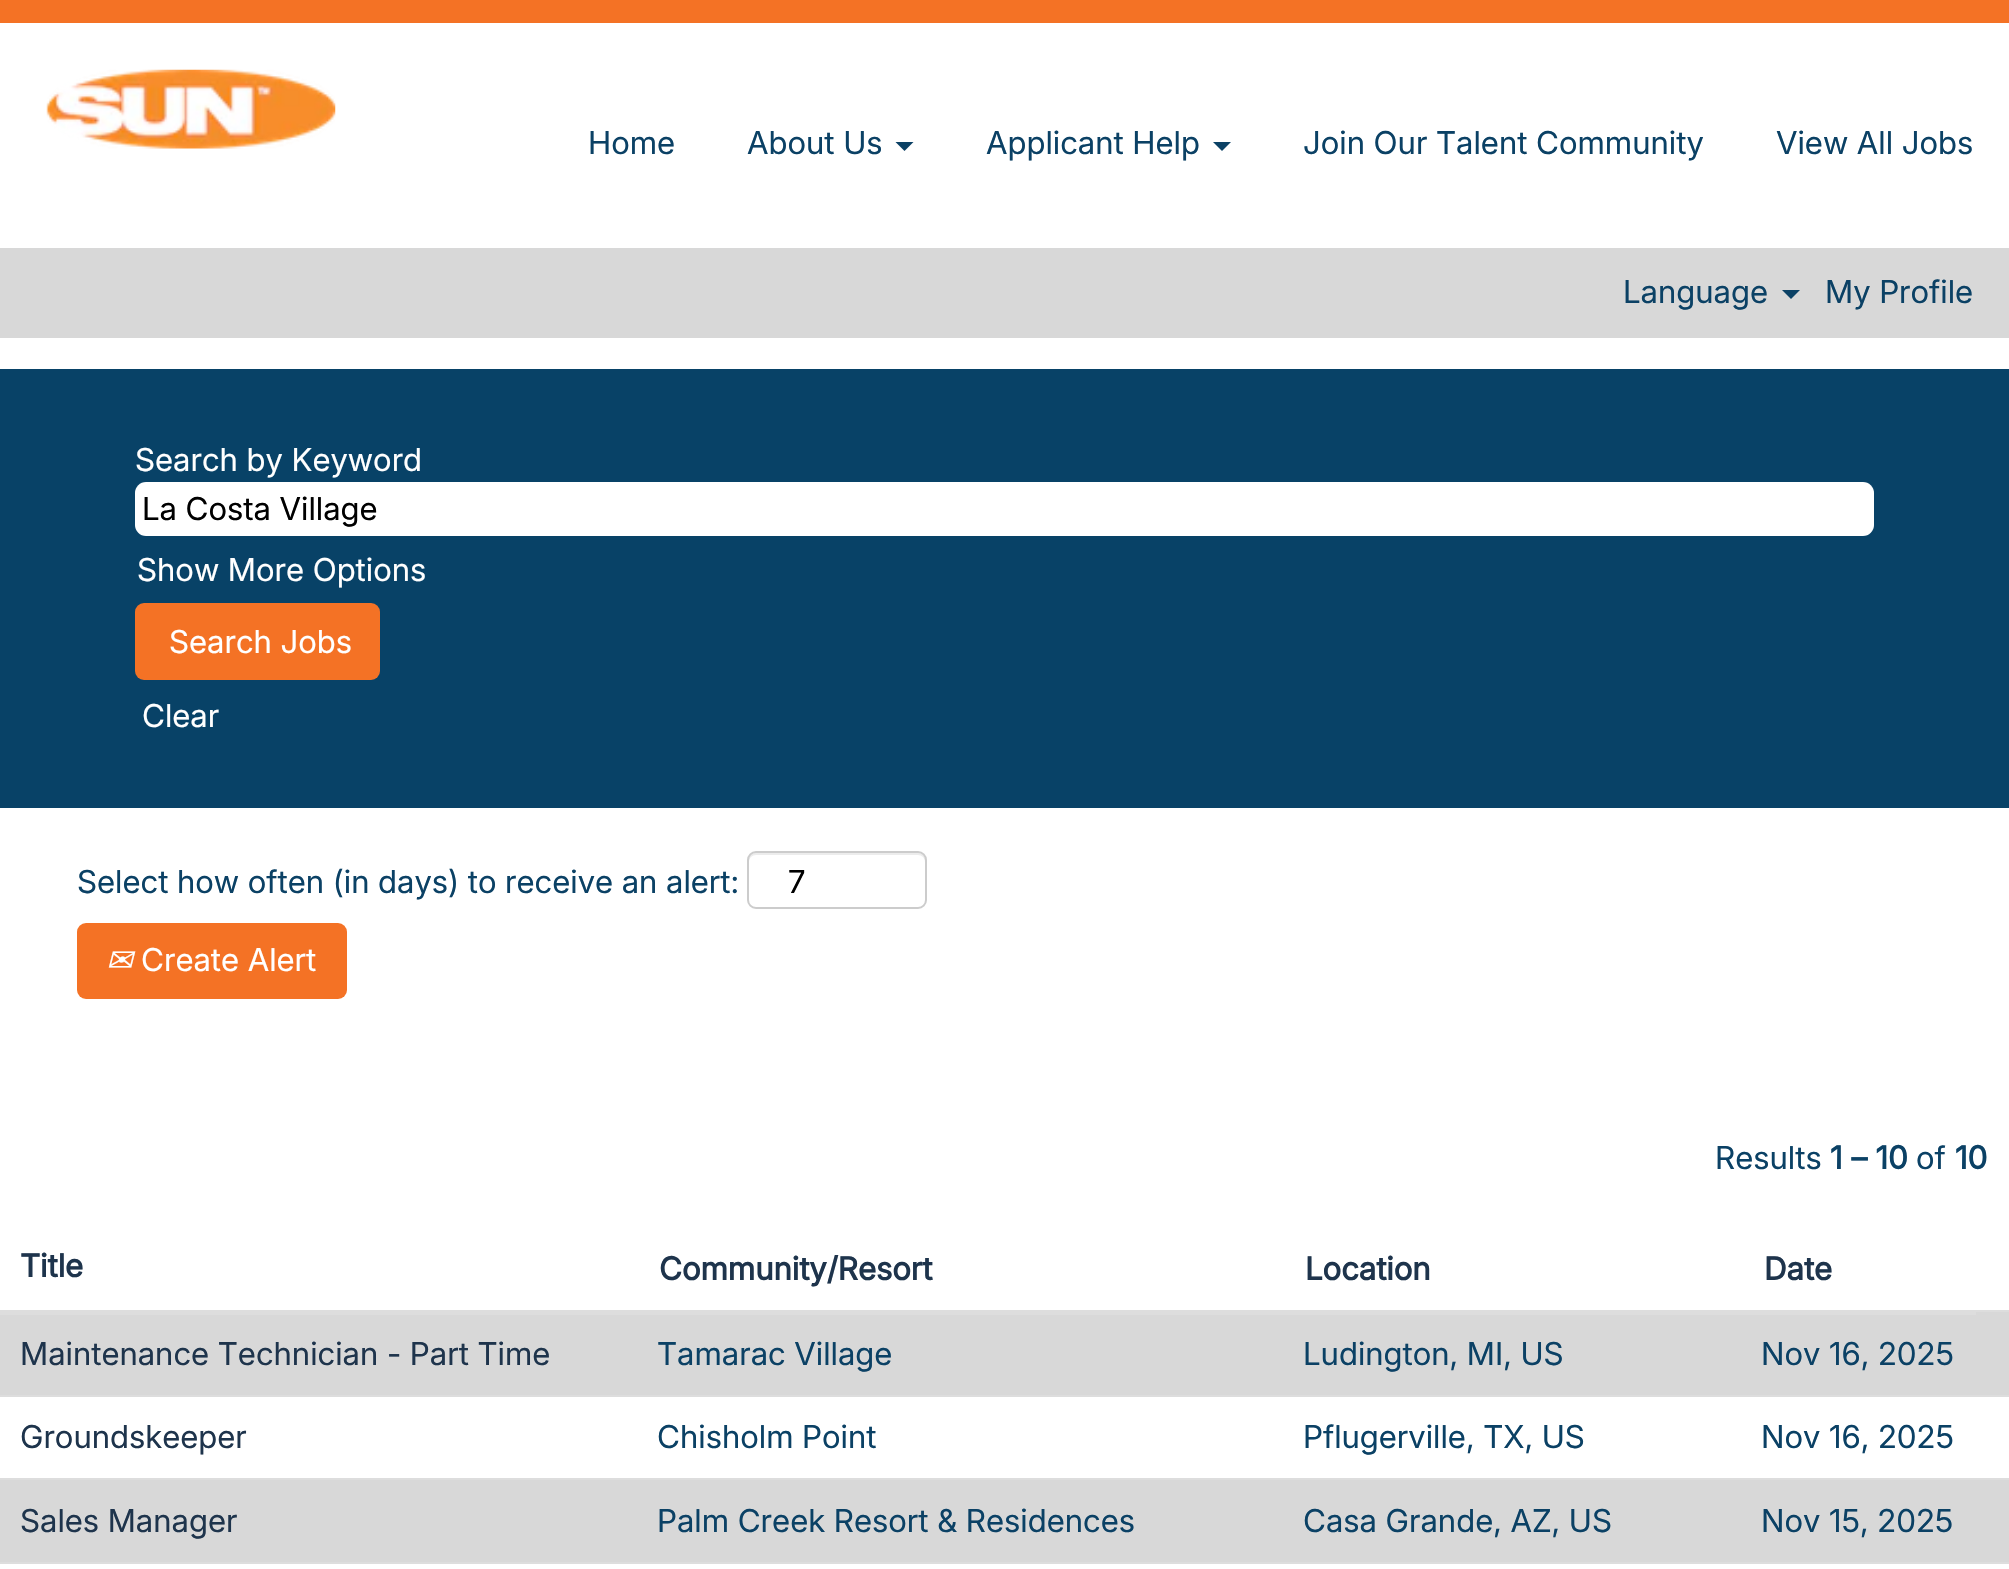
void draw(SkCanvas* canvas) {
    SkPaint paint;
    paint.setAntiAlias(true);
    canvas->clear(0xFFFFFFFF);
    paint.setColor(0xFFF47225);
    canvas->drawRect(SkRect::MakeXYWH(0, 0, 2009, 23), paint);
    canvas->drawImageRect(SkImages::DeferredFromEncodedData(SkData::MakeFromFileName("img1.png")), SkRect::MakeXYWH(46, 69, 290, 80), SkSamplingOptions());
    SkFont font1(fontMgr->matchFamilyStyle("Inter", SkFontStyle::Normal()), 31.5f);
    font1.setSubpixel(true);
    paint.setColor(0xFF0B4165);
    canvas->drawString("Home", 588, 154, font1, paint);
    canvas->drawString("About Us", 747, 154, font1, paint);
    canvas->drawPath(SkPathBuilder().moveTo(895.5f, 142).lineTo(913.5f, 142).lineTo(904.5f, 151).close().detach(), paint);
    canvas->drawString("Applicant Help", 986, 154, font1, paint);
    canvas->drawPath(SkPathBuilder().moveTo(1213, 142).lineTo(1231, 142).lineTo(1222, 151).close().detach(), paint);
    canvas->drawString("Join Our Talent Community", 1303, 154, font1, paint);
    canvas->drawString("View All Jobs", 1776, 154, font1, paint);
    paint.setColor(0xFFD8D8D8);
    canvas->drawRect(SkRect::MakeXYWH(0, 248, 2009, 90), paint);
    paint.setColor(0xFF0B4165);
    canvas->drawString("Language", 1623, 303, font1, paint);
    canvas->drawPath(SkPathBuilder().moveTo(1782, 290).lineTo(1800, 290).lineTo(1791, 299).close().detach(), paint);
    canvas->drawString("My Profile", 1825, 303, font1, paint);
    paint.setColor(0xFF084267);
    canvas->drawRect(SkRect::MakeXYWH(0, 369, 2009, 439), paint);
    paint.setColor(0xFFFFFFFF);
    canvas->drawString("Search by Keyword", 135, 471, font1, paint);
    canvas->drawRoundRect(SkRect::MakeXYWH(135, 482, 1739, 54), 11, 11, paint);
    paint.setColor(0xFF000000);
    canvas->drawString("La Costa Village", 142, 520, font1, paint);
    paint.setColor(0xFFFFFFFF);
    canvas->drawString("Show More Options", 137, 581, font1, paint);
    paint.setColor(0xFFF47225);
    canvas->drawRoundRect(SkRect::MakeXYWH(135, 603, 245, 77), 9, 9, paint);
    paint.setColor(0xFFFFFFFF);
    canvas->drawString("Search Jobs", 169, 653, font1, paint);
    canvas->drawString("Clear", 142, 727, font1, paint);
    paint.setColor(0xFF0B4165);
    canvas->drawString("Select how often (in days) to receive an alert:", 77, 893, font1, paint);
    paint.setColor(0xFFECECEC);
    canvas->drawPath(SkPathBuilder().moveTo(756, 855).lineTo(918, 855).cubicTo(922, 855, 925, 858, 925, 862).lineTo(925, 860).cubicTo(925, 856, 922, 853, 918, 853).lineTo(756, 853).cubicTo(752, 853, 749, 856, 749, 860).lineTo(749, 862).cubicTo(749, 858, 752, 855, 756, 855).close().detach(), paint);
    paint.setStyle(SkPaint::kStroke_Style);
    paint.setStrokeWidth(2);
    paint.setColor(0xFFCCCCCC);
    canvas->drawRoundRect(SkRect::MakeXYWH(748, 852, 178, 56), 8, 8, paint);
    paint.setStyle(SkPaint::kFill_Style);
    paint.setColor(0xFF000000);
    canvas->drawString("7", 788, 893, font1, paint);
    paint.setColor(0xFFF47225);
    canvas->drawRoundRect(SkRect::MakeXYWH(77, 923, 270, 76), 9, 9, paint);
    SkFont font2(fontMgr->matchFamilyStyle("DejaVu Sans", SkFontStyle::Italic()), 31.5f);
    font2.setSubpixel(true);
    paint.setColor(0xFFFFFFFF);
    canvas->drawString("✉", 106, 971, font2, paint);
    canvas->drawString("Create Alert", 141, 971, font1, paint);
    paint.setColor(0xFF0B4165);
    canvas->drawString("Results", 1715, 1169, font1, paint);
    SkFont font3(fontMgr->matchFamilyStyle("Inter", SkFontStyle::Bold()), 31.5f);
    font3.setSubpixel(true);
    canvas->drawString("1 – 10", 1830, 1169, font3, paint);
    canvas->drawString("of", 1916, 1169, font1, paint);
    canvas->drawString("10", 1955, 1169, font3, paint);
    paint.setColor(0xFF1E344C);
    canvas->drawString("Title", 20, 1277, font3, paint);
    canvas->drawString("Community/Resort", 659, 1280, font3, paint);
    canvas->drawString("Location", 1305, 1280, font3, paint);
    paint.setColor(0xFFD8D8D8);
    canvas->drawRect(SkRect::MakeXYWH(0, 1312, 2009, 83), paint);
    paint.setColor(0xFFDDDDDD);
    canvas->drawRect(SkRect::MakeXYWH(1973, 1310, 36, 2), paint);
    canvas->drawRect(SkRect::MakeXYWH(0, 1310, 1976, 5), paint);
    paint.setColor(0xFF1E344C);
    canvas->drawString("Date", 1764, 1280, font3, paint);
    canvas->drawString("Maintenance Technician - Part Time", 20, 1365, font1, paint);
    paint.setColor(0xFF0B4165);
    canvas->drawString("Tamarac Village", 657, 1365, font1, paint);
    canvas->drawString("Ludington, MI, US", 1303, 1365, font1, paint);
    canvas->drawString("Nov 16, 2025", 1761, 1365, font1, paint);
    paint.setColor(0xFFDDDDDD);
    canvas->drawRect(SkRect::MakeXYWH(0, 1395, 2009, 2), paint);
    paint.setColor(0xFF1E344C);
    canvas->drawString("Groundskeeper", 20, 1448, font1, paint);
    paint.setColor(0xFF0B4165);
    canvas->drawString("Chisholm Point", 657, 1448, font1, paint);
    canvas->drawString("Pflugerville, TX, US", 1303, 1448, font1, paint);
    canvas->drawString("Nov 16, 2025", 1761, 1448, font1, paint);
    paint.setColor(0xFFD8D8D8);
    canvas->drawRect(SkRect::MakeXYWH(0, 1480, 2009, 82), paint);
    paint.setColor(0xFFDDDDDD);
    canvas->drawRect(SkRect::MakeXYWH(0, 1478, 2009, 2), paint);
    paint.setColor(0xFF1E344C);
    canvas->drawString("Sales Manager", 20, 1532, font1, paint);
    paint.setColor(0xFF0B4165);
    canvas->drawString("Palm Creek Resort & Residences", 657, 1532, font1, paint);
    canvas->drawString("Casa Grande, AZ, US", 1303, 1532, font1, paint);
    canvas->drawString("Nov 15, 2025", 1761, 1532, font1, paint);
    paint.setColor(0xFFDDDDDD);
    canvas->drawRect(SkRect::MakeXYWH(0, 1562, 2009, 2), paint);
}
